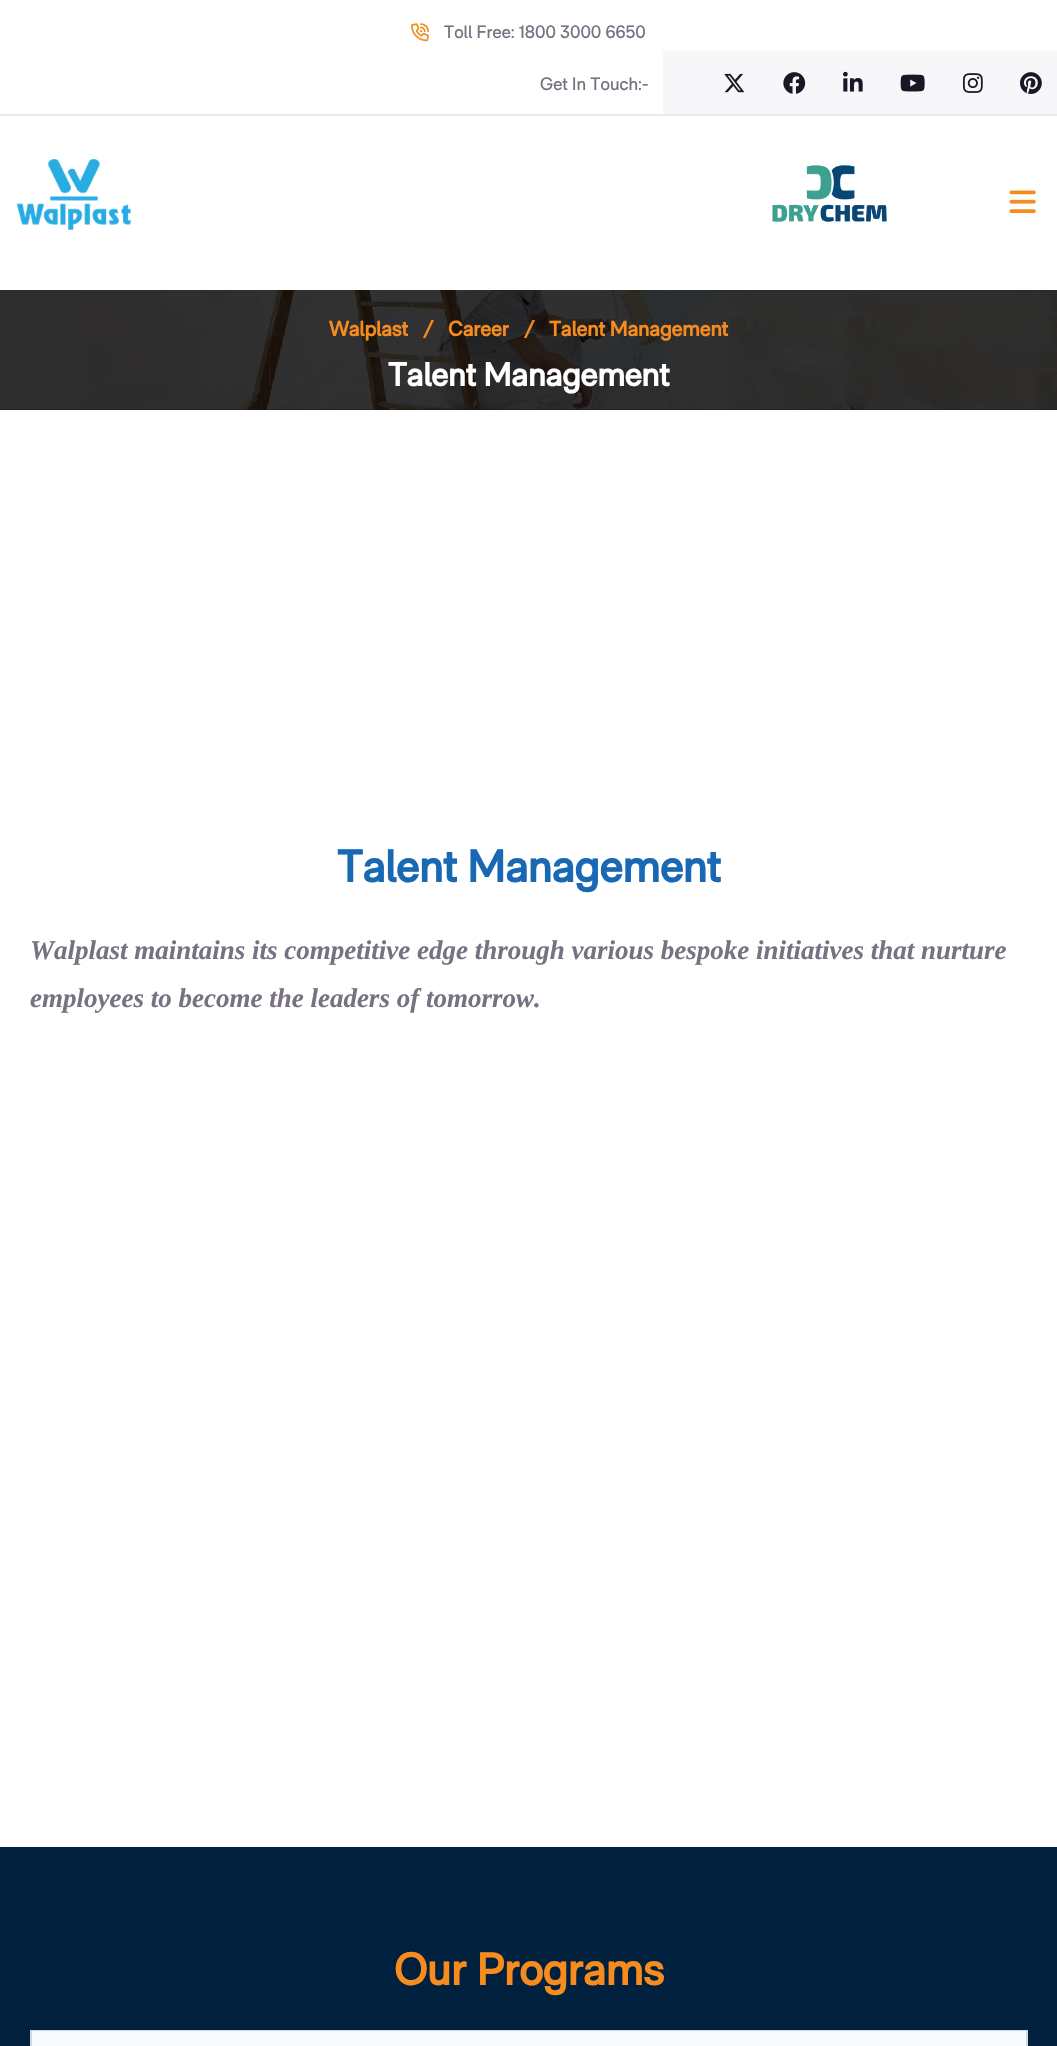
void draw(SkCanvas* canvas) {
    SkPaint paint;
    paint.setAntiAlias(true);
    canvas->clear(0xFFFFFFFF);
    paint.setColor(0xFFE9E9EE);
    canvas->drawRect(SkRect::MakeXYWH(0, 114, 1057, 2), paint);
    canvas->drawImageRect(SkImages::DeferredFromEncodedData(SkData::MakeFromFileName("img1.png")), SkRect::MakeXYWH(411, 23, 18, 19), SkSamplingOptions());
    SkFont font1(fontMgr->matchFamilyStyle("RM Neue", SkFontStyle::Normal()), 18);
    font1.setSubpixel(true);
    paint.setColor(0xFF777181);
    canvas->drawString("Toll Free: 1800 3000 6650", 444, 38, font1, paint);
    canvas->drawString("Get In Touch:-", 540, 90, font1, paint);
    paint.setColor(0xFFF7F7F9);
    canvas->drawRect(SkRect::MakeXYWH(663, 51, 394, 63), paint);
    canvas->drawImageRect(SkImages::DeferredFromEncodedData(SkData::MakeFromFileName("img2.png")), SkRect::MakeXYWH(724, 73, 21, 20), SkSamplingOptions());
    canvas->drawImageRect(SkImages::DeferredFromEncodedData(SkData::MakeFromFileName("img3.png")), SkRect::MakeXYWH(783, 72, 23, 22), SkSamplingOptions());
    canvas->drawImageRect(SkImages::DeferredFromEncodedData(SkData::MakeFromFileName("img4.png")), SkRect::MakeXYWH(843, 71, 20, 21), SkSamplingOptions());
    canvas->drawImageRect(SkImages::DeferredFromEncodedData(SkData::MakeFromFileName("img5.png")), SkRect::MakeXYWH(900, 74, 25, 18), SkSamplingOptions());
    canvas->drawImageRect(SkImages::DeferredFromEncodedData(SkData::MakeFromFileName("img6.png")), SkRect::MakeXYWH(963, 73, 20, 20), SkSamplingOptions());
    canvas->drawImageRect(SkImages::DeferredFromEncodedData(SkData::MakeFromFileName("img7.png")), SkRect::MakeXYWH(1020, 72, 22, 22), SkSamplingOptions());
    canvas->drawImageRect(SkImages::DeferredFromEncodedData(SkData::MakeFromFileName("img8.png")), SkRect::MakeXYWH(16, 159, 116, 71), SkSamplingOptions());
    canvas->drawImageRect(SkImages::DeferredFromEncodedData(SkData::MakeFromFileName("img9.png")), SkRect::MakeXYWH(1009, 190, 27, 23), SkSamplingOptions());
    canvas->drawImageRect(SkImages::DeferredFromEncodedData(SkData::MakeFromFileName("img10.png")), SkRect::MakeXYWH(772, 165, 115, 57), SkSamplingOptions());
    paint.setColor(0xFF1B1525);
    canvas->drawRect(SkRect::MakeXYWH(0, 409, 1057, 1), paint);
    canvas->drawImageRect(SkImages::DeferredFromEncodedData(SkData::MakeFromFileName("img11.png")), SkRect::MakeXYWH(0, 290, 1057, 120), SkSamplingOptions());
    SkFont font2(fontMgr->matchFamilyStyle("RM Neue", SkFontStyle::Bold()), 21);
    font2.setSubpixel(true);
    paint.setColor(0xFFF68B1E);
    canvas->drawString("Walplast", 329, 336, font2, paint);
    canvas->drawString("/", 423, 336, font2, paint);
    canvas->drawString("Career", 448, 336, font2, paint);
    canvas->drawString("/", 524, 336, font2, paint);
    canvas->drawString("Talent Management", 549, 336, font2, paint);
    SkFont font3(fontMgr->matchFamilyStyle("RM Neue", SkFontStyle::Bold()), 33);
    font3.setSubpixel(true);
    paint.setColor(0xFFFFFFFF);
    canvas->drawString("Talent Management", 388, 386, font3, paint);
    SkFont font4(fontMgr->matchFamilyStyle("RM Neue", SkFontStyle::Bold()), 45);
    font4.setSubpixel(true);
    paint.setColor(0xFF1968B3);
    canvas->drawString("Talent Management", 337, 882, font4, paint);
    SkFont font5(fontMgr->matchFamilyStyle("Liberation Serif", SkFontStyle::BoldItalic()), 27);
    font5.setSubpixel(true);
    paint.setColor(0xFF777181);
    canvas->drawString("Walplast maintains its competitive edge through various bespoke initiatives that nurture", 30, 959, font5, paint);
    canvas->drawString("employees to become the leaders of tomorrow.", 30, 1007, font5, paint);
    paint.setColor(0xFF00203E);
    canvas->drawRect(SkRect::MakeXYWH(0, 1847, 1057, 199), paint);
    paint.setColor(0xFFF68B1E);
    canvas->drawString("Our Programs", 394, 1985, font4, paint);
    paint.setStyle(SkPaint::kStroke_Style);
    paint.setStrokeWidth(2);
    paint.setColor(0xFFD5D8DC);
    canvas->drawRect(SkRect::MakeXYWH(31, 2031, 996, 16), paint);
    paint.setStyle(SkPaint::kFill_Style);
    paint.setColor(0xFFF6FAFB);
    canvas->drawRect(SkRect::MakeXYWH(32, 2031, 994, 15), paint);
}
